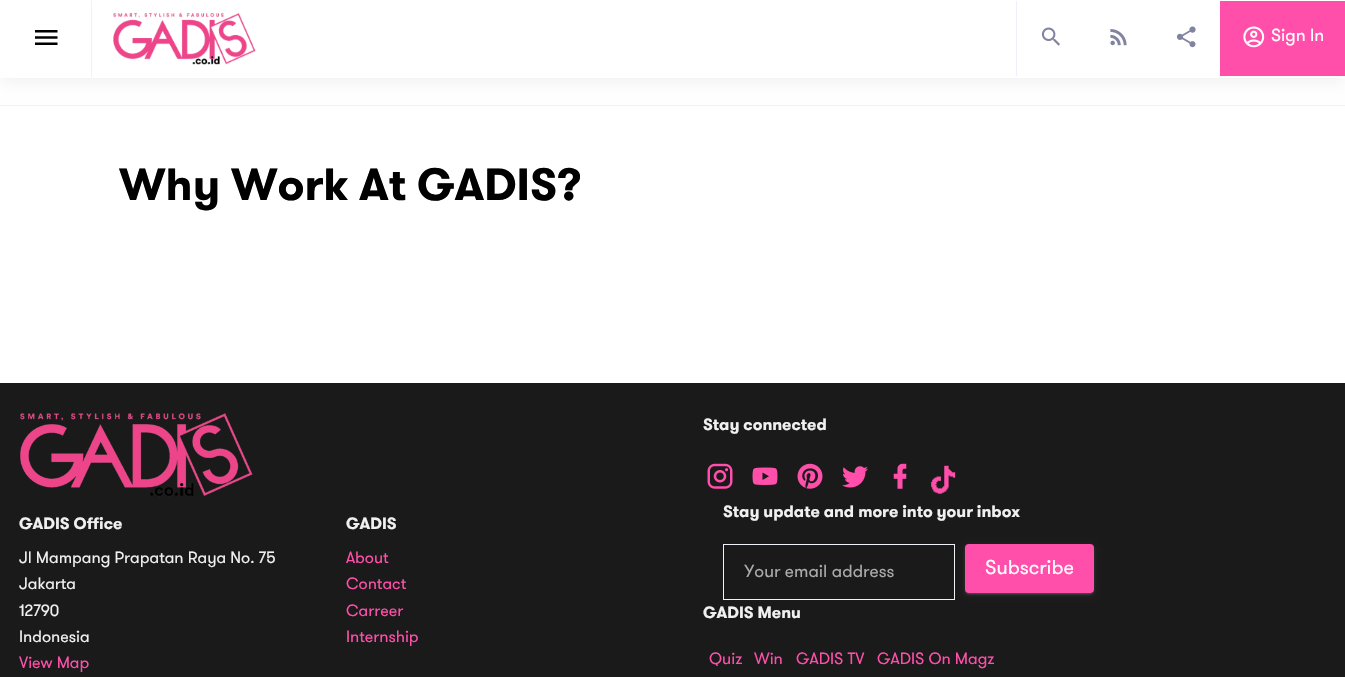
void draw(SkCanvas* canvas) {
    SkPaint paint;
    paint.setAntiAlias(true);
    canvas->clear(0xFFFFFFFF);
    paint.setColor(0xFFEFF1F9);
    canvas->drawRect(SkRect::MakeXYWH(0, 105, 1345, 1), paint);
    paint.setColor(0x0D000000);
    paint.setMaskFilter(SkMaskFilter::MakeBlur(kNormal_SkBlurStyle, 7.5f));
    canvas->drawRect(SkRect::MakeXYWH(0, 5, 1345, 78), paint);
    paint.setMaskFilter(nullptr);
    paint.setColor(0xFFFFFFFF);
    canvas->drawRect(SkRect::MakeXYWH(0, 0, 1345, 78), paint);
    paint.setColor(0xFFEFF1F9);
    canvas->drawPath(SkPathBuilder().moveTo(92, 0).lineTo(92, 78).lineTo(91, 76).lineTo(91, 1).close().detach(), paint);
    canvas->drawImageRect(SkImages::DeferredFromEncodedData(SkData::MakeFromFileName("img1.png")), SkRect::MakeXYWH(35, 30, 23, 15), SkSamplingOptions());
    canvas->drawImageRect(SkImages::DeferredFromEncodedData(SkData::MakeFromFileName("img2.png")), SkRect::MakeXYWH(113, 12, 143, 53), SkSamplingOptions());
    canvas->drawRect(SkRect::MakeXYWH(1016, 1, 1, 75), paint);
    canvas->drawImageRect(SkImages::DeferredFromEncodedData(SkData::MakeFromFileName("img3.png")), SkRect::MakeXYWH(1041, 27, 19, 19), SkSamplingOptions());
    canvas->drawImageRect(SkImages::DeferredFromEncodedData(SkData::MakeFromFileName("img4.png")), SkRect::MakeXYWH(1110, 29, 17, 17), SkSamplingOptions());
    canvas->drawImageRect(SkImages::DeferredFromEncodedData(SkData::MakeFromFileName("img5.png")), SkRect::MakeXYWH(1176, 26, 20, 22), SkSamplingOptions());
    paint.setColor(0xFFFF4FAA);
    canvas->drawRect(SkRect::MakeXYWH(1220, 1, 125, 75), paint);
    canvas->drawImageRect(SkImages::DeferredFromEncodedData(SkData::MakeFromFileName("img6.png")), SkRect::MakeXYWH(1243, 26, 22, 22), SkSamplingOptions());
    SkFont font1(fontMgr->matchFamilyStyle("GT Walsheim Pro", SkFontStyle::Normal()), 17.5f);
    font1.setSubpixel(true);
    paint.setColor(0xFFFFFFFF);
    canvas->drawString("Sign In", 1271, 41, font1, paint);
    SkFont font2(fontMgr->matchFamilyStyle("GT Walsheim Pro", SkFontStyle::Bold()), 45);
    font2.setSubpixel(true);
    paint.setColor(0xFF000000);
    canvas->drawString("Why Work At GADIS?", 119, 200, font2, paint);
    paint.setColor(0xFF1A1A1A);
    canvas->drawRect(SkRect::MakeXYWH(0, 383, 1345, 294), paint);
    canvas->drawImageRect(SkImages::DeferredFromEncodedData(SkData::MakeFromFileName("img7.png")), SkRect::MakeXYWH(20, 413, 233, 84), SkSamplingOptions());
    SkFont font3(fontMgr->matchFamilyStyle("GT Walsheim Pro", SkFontStyle::Bold()), 16.25f);
    font3.setSubpixel(true);
    paint.setColor(0xFFF0F0F0);
    canvas->drawString("GADIS Office", 19, 529, font3, paint);
    SkFont font4(fontMgr->matchFamilyStyle("GT Walsheim Pro", SkFontStyle::Normal()), 16.25f);
    font4.setSubpixel(true);
    canvas->drawString("Jl Mampang Prapatan Raya No. 75", 19, 563, font4, paint);
    canvas->drawString("Jakarta", 19, 589, font4, paint);
    canvas->drawString("12790", 19, 616, font4, paint);
    canvas->drawString("Indonesia", 19, 642, font4, paint);
    paint.setColor(0xFFFF4FAA);
    canvas->drawString("View Map", 19, 668, font4, paint);
    paint.setColor(0xFFF0F0F0);
    canvas->drawString("GADIS", 346, 529, font3, paint);
    paint.setColor(0xFFFF4FAA);
    canvas->drawString("About", 346, 563, font4, paint);
    canvas->drawString("Contact", 346, 589, font4, paint);
    canvas->drawString("Carreer", 346, 616, font4, paint);
    canvas->drawString("Internship", 346, 642, font4, paint);
    paint.setColor(0xFFF0F0F0);
    canvas->drawString("Stay connected", 703, 430, font3, paint);
    canvas->drawImageRect(SkImages::DeferredFromEncodedData(SkData::MakeFromFileName("img8.png")), SkRect::MakeXYWH(707, 463, 26, 26), SkSamplingOptions());
    canvas->drawImageRect(SkImages::DeferredFromEncodedData(SkData::MakeFromFileName("img9.png")), SkRect::MakeXYWH(752, 467, 26, 18), SkSamplingOptions());
    canvas->drawImageRect(SkImages::DeferredFromEncodedData(SkData::MakeFromFileName("img10.png")), SkRect::MakeXYWH(797, 463, 26, 26), SkSamplingOptions());
    canvas->drawImageRect(SkImages::DeferredFromEncodedData(SkData::MakeFromFileName("img11.png")), SkRect::MakeXYWH(842, 466, 26, 22), SkSamplingOptions());
    canvas->drawImageRect(SkImages::DeferredFromEncodedData(SkData::MakeFromFileName("img12.png")), SkRect::MakeXYWH(893, 463, 14, 26), SkSamplingOptions());
    canvas->drawImageRect(SkImages::DeferredFromEncodedData(SkData::MakeFromFileName("img13.png")), SkRect::MakeXYWH(931, 465, 25, 29), SkSamplingOptions());
    canvas->drawString("Stay update and more into your inbox", 723, 517, font3, paint);
    paint.setStyle(SkPaint::kStroke_Style);
    paint.setStrokeWidth(1);
    paint.setColor(0xFFEFF1F9);
    canvas->drawRect(SkRect::MakeXYWH(723.5f, 544.5f, 231, 55), paint);
    paint.setStyle(SkPaint::kFill_Style);
    paint.setColor(0xFFAAAAAA);
    canvas->drawString("Your email address", 744, 577, font1, paint);
    paint.setColor(0x1F999999);
    paint.setMaskFilter(SkMaskFilter::MakeBlur(kNormal_SkBlurStyle, 3));
    canvas->drawRoundRect(SkRect::MakeXYWH(965, 545, 129, 49), 4, 4, paint);
    paint.setMaskFilter(nullptr);
    paint.setColor(0x33999999);
    paint.setMaskFilter(SkMaskFilter::MakeBlur(kNormal_SkBlurStyle, 0.5f));
    canvas->drawRoundRect(SkRect::MakeXYWH(968, 550, 123, 44), 1, 1, paint);
    paint.setMaskFilter(nullptr);
    paint.setColor(0x24999999);
    paint.setMaskFilter(SkMaskFilter::MakeBlur(kNormal_SkBlurStyle, 1));
    canvas->drawRoundRect(SkRect::MakeXYWH(965, 546, 129, 49), 4, 4, paint);
    paint.setMaskFilter(nullptr);
    paint.setColor(0xFFFF4FAA);
    canvas->drawRoundRect(SkRect::MakeXYWH(965, 544, 129, 49), 4, 4, paint);
    SkFont font5(fontMgr->matchFamilyStyle("GT Walsheim Pro", SkFontStyle::Normal()), 20);
    font5.setSubpixel(true);
    paint.setColor(0xFFFFFFFF);
    canvas->drawString("Subscribe", 985, 574, font5, paint);
    paint.setColor(0xFFF0F0F0);
    canvas->drawString("GADIS Menu", 703, 618, font3, paint);
    paint.setColor(0xFFFF4FAA);
    canvas->drawString("Quiz", 709, 664, font4, paint);
    canvas->drawString("Win", 754, 664, font4, paint);
    canvas->drawString("GADIS TV", 796, 664, font4, paint);
    canvas->drawString("GADIS On Magz", 877, 664, font4, paint);
}
